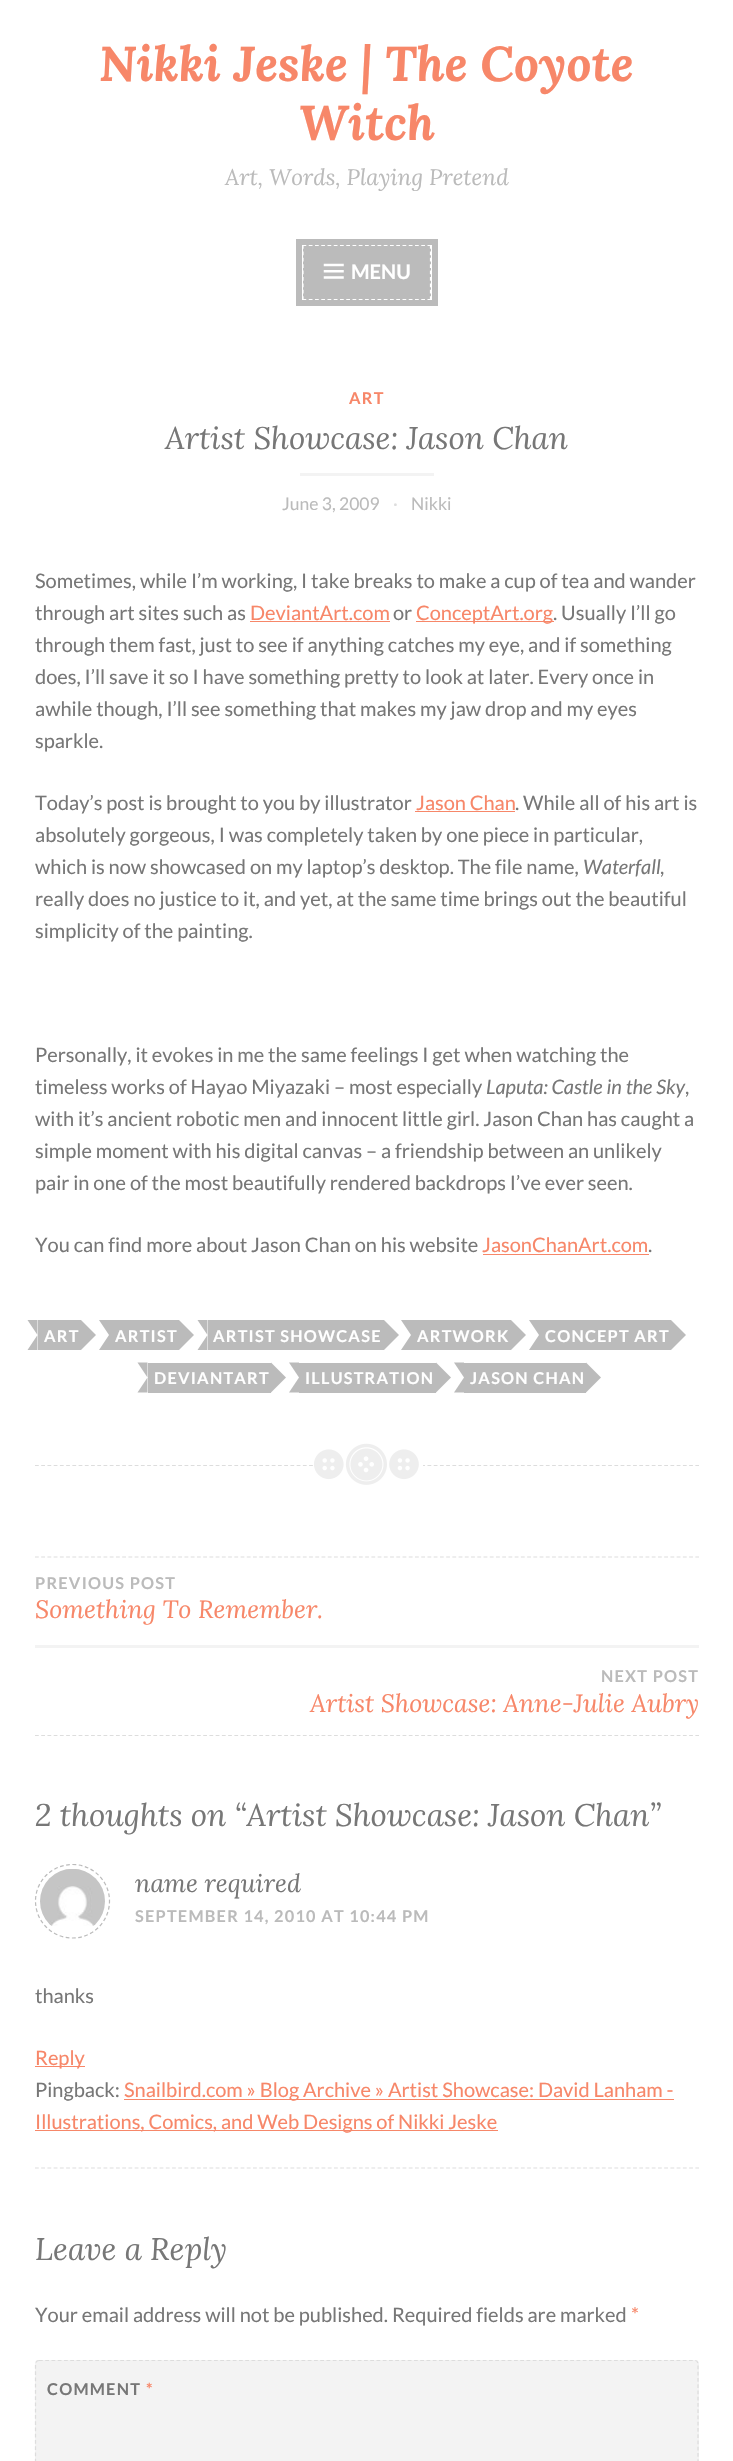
void draw(SkCanvas* canvas) {
    SkPaint paint;
    paint.setAntiAlias(true);
    auto spacedText = [&](const char* s, float x, float y, const SkFont& font, const SkPaint& ink, float letter, float word) {
        std::vector<SkGlyphID> glyphs(font.countText(s, strlen(s), SkTextEncoding::kUTF8));
        std::vector<float> xs(glyphs.size());
        font.textToGlyphs(s, strlen(s), SkTextEncoding::kUTF8, glyphs);
        font.getXPos(glyphs, xs, x);
        float extra = 0;
        for (size_t i = 0; i < glyphs.size(); i++) {
            xs[i] += extra;
            extra += letter + word * (glyphs[i] == font.unicharToGlyph(' '));
        }
        canvas->drawTextBlob(SkTextBlob::MakeFromPosHGlyphs(glyphs, xs, y, font), 0, 0, ink);
    };
    canvas->clear(0xFFFFFFFF);
    SkFont font1(fontMgr->matchFamilyStyle("Lora", SkFontStyle::BoldItalic()), 48.75f);
    font1.setSubpixel(true);
    paint.setColor(0xFFF78769);
    canvas->drawString("Nikki Jeske | The Coyote", 99, 81, font1, paint);
    canvas->drawString("Witch", 299, 140, font1, paint);
    SkFont font2(fontMgr->matchFamilyStyle("Lora", SkFontStyle::Italic()), 22.5f);
    font2.setSubpixel(true);
    paint.setColor(0xFFBBBBBB);
    canvas->drawString("Art, Words, Playing Pretend", 225, 185, font2, paint);
    canvas->drawRect(SkRect::MakeXYWH(303, 245, 128, 55), paint);
    paint.setStyle(SkPaint::kStroke_Style);
    paint.setStrokeWidth(1.2f);
    paint.setColor(0xFFFFFFFF);
    paint.setPathEffect(SkDashPathEffect::Make({{3.75f, 2.5f}}, 0));
    canvas->drawPath(SkPathBuilder().moveTo(302.5f, 245.5f).lineTo(431, 245.5f).detach(), paint);
    paint.setPathEffect(nullptr);
    paint.setPathEffect(SkDashPathEffect::Make({{3.75f, 2.65f}}, 0));
    canvas->drawPath(SkPathBuilder().moveTo(430.5f, 245).lineTo(430.5f, 300).detach(), paint);
    paint.setPathEffect(nullptr);
    paint.setPathEffect(SkDashPathEffect::Make({{3.75f, 2.5f}}, 0));
    canvas->drawPath(SkPathBuilder().moveTo(302.5f, 299.5f).lineTo(431, 299.5f).detach(), paint);
    paint.setPathEffect(nullptr);
    paint.setPathEffect(SkDashPathEffect::Make({{3.75f, 2.65f}}, 0));
    canvas->drawPath(SkPathBuilder().moveTo(303, 245).lineTo(303, 300).detach(), paint);
    paint.setPathEffect(nullptr);
    paint.setStrokeWidth(6);
    paint.setColor(0xFFBBBBBB);
    canvas->drawRect(SkRect::MakeXYWH(299, 242, 136, 61), paint);
    canvas->drawImageRect(SkImages::DeferredFromEncodedData(SkData::MakeFromFileName("img1.png")), SkRect::MakeXYWH(323, 263, 21, 16), SkSamplingOptions());
    SkFont font3(fontMgr->matchFamilyStyle("Lato", SkFontStyle::Bold()), 20);
    font3.setSubpixel(true);
    paint.setStyle(SkPaint::kFill_Style);
    paint.setColor(0xFFFFFFFF);
    canvas->drawString("MENU", 351, 279, font3, paint);
    paint.setStyle(SkPaint::kStroke_Style);
    paint.setStrokeWidth(1.2f);
    paint.setColor(0xFFDDDDDD);
    paint.setPathEffect(SkDashPathEffect::Make({{3.75f, 2.48f}}, 0));
    canvas->drawPath(SkPathBuilder().moveTo(35, 1465.5f).lineTo(699, 1465.5f).detach(), paint);
    paint.setPathEffect(nullptr);
    SkFont font4(fontMgr->matchFamilyStyle("Lato", SkFontStyle::Bold()), 16.25f);
    font4.setSubpixel(true);
    paint.setStyle(SkPaint::kFill_Style);
    paint.setColor(0xFFF78769);
    spacedText("ART", 349, 404, font4, paint, 1.25f, 0);
    SkFont font5(fontMgr->matchFamilyStyle("Lora", SkFontStyle::Italic()), 31.25f);
    font5.setSubpixel(true);
    paint.setColor(0xFF777777);
    canvas->drawString("Artist Showcase: Jason Chan", 165, 449, font5, paint);
    paint.setColor(0xFFF3F3F3);
    canvas->drawRect(SkRect::MakeXYWH(300, 473, 134, 3), paint);
    SkFont font6(fontMgr->matchFamilyStyle("Lato", SkFontStyle::Normal()), 17.5f);
    font6.setSubpixel(true);
    paint.setColor(0xFFBBBBBB);
    canvas->drawString("June 3, 2009", 282, 510, font6, paint);
    paint.setColor(0xFFDDDDDD);
    canvas->drawString("·", 393, 510, font6, paint);
    paint.setColor(0xFFBBBBBB);
    canvas->drawString("Nikki", 411, 510, font6, paint);
    SkFont font7(fontMgr->matchFamilyStyle("Lato", SkFontStyle::Normal()), 20);
    font7.setSubpixel(true);
    paint.setColor(0xFF777777);
    canvas->drawString("Sometimes, while I’m working, I take breaks to make a cup of tea and wander", 35, 588, font7, paint);
    canvas->drawString("through art sites such as", 35, 620, font7, paint);
    paint.setColor(0xFFF78769);
    canvas->drawString("DeviantArt.com", 250, 620, font7, paint);
    canvas->drawRect(SkRect::MakeXYWH(250, 621, 140, 1), paint);
    paint.setColor(0xFF777777);
    canvas->drawString("or", 393, 620, font7, paint);
    paint.setColor(0xFFF78769);
    canvas->drawRect(SkRect::MakeXYWH(416, 621, 138, 1), paint);
    canvas->drawString("ConceptArt.org", 416, 620, font7, paint);
    paint.setColor(0xFF777777);
    canvas->drawString(". Usually I’ll go", 553, 620, font7, paint);
    canvas->drawString("through them fast, just to see if anything catches my eye, and if something", 35, 652, font7, paint);
    canvas->drawString("does, I’ll save it so I have something pretty to look at later. Every once in", 35, 684, font7, paint);
    canvas->drawString("awhile though, I’ll see something that makes my jaw drop and my eyes", 35, 716, font7, paint);
    canvas->drawString("sparkle.", 35, 748, font7, paint);
    canvas->drawString("Today’s post is brought to you by illustrator", 35, 810, font7, paint);
    paint.setColor(0xFFF78769);
    canvas->drawString("Jason Chan", 416, 810, font7, paint);
    canvas->drawRect(SkRect::MakeXYWH(415, 811, 100, 1), paint);
    paint.setColor(0xFF777777);
    canvas->drawString(". While all of his art is", 515, 810, font7, paint);
    canvas->drawString("absolutely gorgeous, I was completely taken by one piece in particular,", 35, 842, font7, paint);
    canvas->drawString("which is now showcased on my laptop’s desktop. The file name,", 35, 874, font7, paint);
    SkFont font8(fontMgr->matchFamilyStyle("Lato", SkFontStyle::Italic()), 20);
    font8.setSubpixel(true);
    canvas->drawString("Waterfall", 583, 874, font8, paint);
    canvas->drawString(",", 660, 874, font7, paint);
    canvas->drawString("really does no justice to it, and yet, at the same time brings out the beautiful", 35, 906, font7, paint);
    canvas->drawString("simplicity of the painting.", 35, 938, font7, paint);
    canvas->drawString("Personally, it evokes in me the same feelings I get when watching the", 35, 1062, font7, paint);
    canvas->drawString("timeless works of Hayao Miyazaki – most especially", 35, 1094, font7, paint);
    canvas->drawString("Laputa: Castle in the Sky", 486, 1094, font8, paint);
    canvas->drawString(",", 685, 1094, font7, paint);
    canvas->drawString("with it’s ancient robotic men and innocent little girl. Jason Chan has caught a", 35, 1126, font7, paint);
    canvas->drawString("simple moment with his digital canvas – a friendship between an unlikely", 35, 1158, font7, paint);
    canvas->drawString("pair in one of the most beautifully rendered backdrops I’ve ever seen.", 35, 1190, font7, paint);
    canvas->drawString("You can find more about Jason Chan on his website", 35, 1252, font7, paint);
    paint.setColor(0xFFF78769);
    canvas->drawString("JasonChanArt.com", 482, 1252, font7, paint);
    canvas->drawRect(SkRect::MakeXYWH(483, 1254, 166, 1), paint);
    paint.setColor(0xFF777777);
    canvas->drawString(".", 648, 1252, font7, paint);
    paint.setColor(0xFFBBBBBB);
    canvas->drawRect(SkRect::MakeXYWH(38, 1320, 43, 30), paint);
    canvas->drawPath(SkPathBuilder().moveTo(27.5f, 1320).lineTo(37.5f, 1320).lineTo(37.5f, 1335).close().moveTo(37.5f, 1350).lineTo(27.5f, 1350).lineTo(37.5f, 1335).close().detach(), paint);
    paint.setColor(0xFFFFFFFF);
    spacedText("ART", 44, 1342, font4, paint, 1.25f, 0);
    paint.setColor(0xFFBBBBBB);
    canvas->drawPath(SkPathBuilder().moveTo(81, 1350).lineTo(81, 1320).lineTo(96, 1335).close().detach(), paint);
    canvas->drawRect(SkRect::MakeXYWH(109, 1320, 70, 30), paint);
    canvas->drawPath(SkPathBuilder().moveTo(99, 1320).lineTo(109, 1320).lineTo(109, 1335).close().moveTo(109, 1350).lineTo(99, 1350).lineTo(109, 1335).close().detach(), paint);
    paint.setColor(0xFFFFFFFF);
    spacedText("ARTIST", 115, 1342, font4, paint, 1.25f, 0);
    paint.setColor(0xFFBBBBBB);
    canvas->drawPath(SkPathBuilder().moveTo(179, 1350).lineTo(179, 1320).lineTo(194, 1335).close().detach(), paint);
    canvas->drawRect(SkRect::MakeXYWH(208, 1320, 176, 30), paint);
    canvas->drawPath(SkPathBuilder().moveTo(197.5f, 1320).lineTo(207.5f, 1320).lineTo(207.5f, 1335).close().moveTo(207.5f, 1350).lineTo(197.5f, 1350).lineTo(207.5f, 1335).close().detach(), paint);
    paint.setColor(0xFFFFFFFF);
    spacedText("ARTIST SHOWCASE", 213, 1342, font4, paint, 1.25f, 0);
    paint.setColor(0xFFBBBBBB);
    canvas->drawPath(SkPathBuilder().moveTo(384, 1350).lineTo(384, 1320).lineTo(399, 1335).close().detach(), paint);
    canvas->drawRect(SkRect::MakeXYWH(411, 1320, 100, 30), paint);
    canvas->drawPath(SkPathBuilder().moveTo(401, 1320).lineTo(411, 1320).lineTo(411, 1335).close().moveTo(411, 1350).lineTo(401, 1350).lineTo(411, 1335).close().detach(), paint);
    paint.setColor(0xFFFFFFFF);
    spacedText("ARTWORK", 417, 1342, font4, paint, 1.25f, 0);
    paint.setColor(0xFFBBBBBB);
    canvas->drawPath(SkPathBuilder().moveTo(511, 1350).lineTo(511, 1320).lineTo(526, 1335).close().detach(), paint);
    canvas->drawRect(SkRect::MakeXYWH(539, 1320, 132, 30), paint);
    canvas->drawPath(SkPathBuilder().moveTo(529, 1320).lineTo(539, 1320).lineTo(539, 1335).close().moveTo(539, 1350).lineTo(529, 1350).lineTo(539, 1335).close().detach(), paint);
    paint.setColor(0xFFFFFFFF);
    spacedText("CONCEPT ART", 545, 1342, font4, paint, 1.25f, 0);
    paint.setColor(0xFFBBBBBB);
    canvas->drawPath(SkPathBuilder().moveTo(671, 1350).lineTo(671, 1320).lineTo(686, 1335).close().detach(), paint);
    canvas->drawRect(SkRect::MakeXYWH(148, 1363, 123, 30), paint);
    canvas->drawPath(SkPathBuilder().moveTo(137.5f, 1362.5f).lineTo(147.5f, 1362.5f).lineTo(147.5f, 1377.5f).close().detach(), paint);
    canvas->drawPath(SkPathBuilder().moveTo(147.5f, 1392.5f).lineTo(137.5f, 1392.5f).lineTo(147.5f, 1377.5f).close().detach(), paint);
    paint.setColor(0xFFFFFFFF);
    spacedText("DEVIANTART", 154, 1384, font4, paint, 1.25f, 0);
    paint.setColor(0xFFBBBBBB);
    canvas->drawPath(SkPathBuilder().moveTo(271, 1392.5f).lineTo(271, 1362.5f).lineTo(286, 1377.5f).close().detach(), paint);
    canvas->drawRect(SkRect::MakeXYWH(299, 1363, 137, 30), paint);
    canvas->drawPath(SkPathBuilder().moveTo(289, 1362.5f).lineTo(299, 1362.5f).lineTo(299, 1377.5f).close().detach(), paint);
    canvas->drawPath(SkPathBuilder().moveTo(299, 1392.5f).lineTo(289, 1392.5f).lineTo(299, 1377.5f).close().detach(), paint);
    paint.setColor(0xFFFFFFFF);
    spacedText("ILLUSTRATION", 305, 1384, font4, paint, 1.25f, 0);
    paint.setColor(0xFFBBBBBB);
    canvas->drawPath(SkPathBuilder().moveTo(436, 1392.5f).lineTo(436, 1362.5f).lineTo(451, 1377.5f).close().detach(), paint);
    canvas->drawRect(SkRect::MakeXYWH(464, 1363, 122, 30), paint);
    canvas->drawPath(SkPathBuilder().moveTo(454, 1362.5f).lineTo(464, 1362.5f).lineTo(464, 1377.5f).close().detach(), paint);
    canvas->drawPath(SkPathBuilder().moveTo(464, 1392.5f).lineTo(454, 1392.5f).lineTo(464, 1377.5f).close().detach(), paint);
    paint.setColor(0xFFFFFFFF);
    spacedText("JASON CHAN", 470, 1384, font4, paint, 1.25f, 0);
    paint.setColor(0xFFBBBBBB);
    canvas->drawPath(SkPathBuilder().moveTo(586, 1392.5f).lineTo(586, 1362.5f).lineTo(601, 1377.5f).close().detach(), paint);
    paint.setColor(0xFFFFFFFF);
    canvas->drawRect(SkRect::MakeXYWH(315, 1464, 108, 3), paint);
    canvas->drawImageRect(SkImages::DeferredFromEncodedData(SkData::MakeFromFileName("img2.png")), SkRect::MakeXYWH(314, 1443, 105, 42), SkSamplingOptions());
    paint.setStyle(SkPaint::kStroke_Style);
    paint.setColor(0xFFDDDDDD);
    paint.setPathEffect(SkDashPathEffect::Make({{3.75f, 2.48f}}, 0));
    canvas->drawPath(SkPathBuilder().moveTo(35, 1557).lineTo(699, 1557).detach(), paint);
    paint.setPathEffect(nullptr);
    paint.setPathEffect(SkDashPathEffect::Make({{3.75f, 2.48f}}, 0));
    canvas->drawPath(SkPathBuilder().moveTo(35, 1735.5f).lineTo(699, 1735.5f).detach(), paint);
    paint.setPathEffect(nullptr);
    paint.setStyle(SkPaint::kFill_Style);
    paint.setColor(0xFFF3F3F3);
    canvas->drawRect(SkRect::MakeXYWH(35, 1645, 664, 3), paint);
    paint.setColor(0xFFBBBBBB);
    spacedText("PREVIOUS POST", 35, 1589, font4, paint, 1.25f, 0);
    SkFont font9(fontMgr->matchFamilyStyle("Lora", SkFontStyle::Italic()), 25);
    font9.setSubpixel(true);
    paint.setColor(0xFFF78769);
    canvas->drawString("Something To Remember.", 35, 1618, font9, paint);
    paint.setColor(0xFFBBBBBB);
    spacedText("NEXT POST", 601, 1682, font4, paint, 1.25f, 0);
    paint.setColor(0xFFF78769);
    canvas->drawString("Artist Showcase: Anne-Julie Aubry", 310, 1712, font9, paint);
    paint.setColor(0xFF777777);
    canvas->drawString("2 thoughts on “Artist Showcase: Jason Chan”", 35, 1826, font5, paint);
    paint.setStyle(SkPaint::kStroke_Style);
    paint.setColor(0xFFBBBBBB);
    paint.setPathEffect(SkDashPathEffect::Make({{3.75f, 2.5f}}, 0));
    canvas->drawPath(SkPathBuilder().moveTo(72.5f, 1864.5f).cubicTo(93, 1864.5f, 109.5f, 1881, 109.5f, 1901).cubicTo(109.5f, 1921.5f, 93, 1938, 72.5f, 1938).cubicTo(52, 1938, 35.5f, 1921.5f, 35.5f, 1901).cubicTo(35.5f, 1881, 52, 1864.5f, 72.5f, 1864.5f).close().detach(), paint);
    paint.setPathEffect(nullptr);
    canvas->drawImageRect(SkImages::DeferredFromEncodedData(SkData::MakeFromFileName("img3.png")), SkRect::MakeXYWH(40, 1869, 65, 57), SkSamplingOptions());
    paint.setStyle(SkPaint::kFill_Style);
    paint.setColor(0xFF777777);
    canvas->drawString("name required", 135, 1892, font9, paint);
    paint.setColor(0xFFBBBBBB);
    spacedText("SEPTEMBER 14, 2010 AT 10:44 PM", 135, 1922, font4, paint, 1.25f, 0);
    paint.setColor(0xFF777777);
    canvas->drawString("thanks", 35, 2003, font7, paint);
    paint.setColor(0xFFF78769);
    canvas->drawRect(SkRect::MakeXYWH(35, 2066, 50, 1), paint);
    canvas->drawString("Reply", 35, 2065, font7, paint);
    paint.setColor(0xFF777777);
    canvas->drawString("Pingback:", 35, 2097, font7, paint);
    paint.setColor(0xFFF78769);
    canvas->drawRect(SkRect::MakeXYWH(124, 2099, 550, 1), paint);
    canvas->drawString("Snailbird.com » Blog Archive » Artist Showcase: David Lanham -", 124, 2097, font7, paint);
    canvas->drawRect(SkRect::MakeXYWH(35, 2130, 463, 1), paint);
    canvas->drawString("Illustrations, Comics, and Web Designs of Nikki Jeske", 35, 2129, font7, paint);
    paint.setStyle(SkPaint::kStroke_Style);
    paint.setColor(0xFFDDDDDD);
    paint.setPathEffect(SkDashPathEffect::Make({{3.75f, 2.48f}}, 0));
    canvas->drawPath(SkPathBuilder().moveTo(35, 2168).lineTo(699, 2168).detach(), paint);
    paint.setPathEffect(nullptr);
    paint.setStyle(SkPaint::kFill_Style);
    paint.setColor(0xFF777777);
    canvas->drawString("Leave a Reply", 35, 2260, font5, paint);
    canvas->drawString("Your email address will not be published. Required fields are marked", 35, 2322, font7, paint);
    paint.setColor(0xFFF78769);
    canvas->drawString("*", 631, 2322, font7, paint);
    paint.setColor(0xFFF3F3F3);
    canvas->drawRoundRect(SkRect::MakeXYWH(35, 2360, 664, 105), 4, 4, paint);
    paint.setStyle(SkPaint::kStroke_Style);
    paint.setColor(0xFFDDDDDD);
    paint.setPathEffect(SkDashPathEffect::Make({{3.75f, 2.5f}}, 0));
    canvas->drawPath(SkPathBuilder().moveTo(39, 2360.5f).lineTo(695, 2360.5f).cubicTo(696.5f, 2360.5f, 698, 2362, 698, 2364).lineTo(698, 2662.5f).cubicTo(698, 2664, 696.5f, 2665.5f, 695, 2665.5f).lineTo(39, 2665.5f).cubicTo(37, 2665.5f, 35.5f, 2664, 35.5f, 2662.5f).lineTo(35.5f, 2364).cubicTo(35.5f, 2362, 37, 2360.5f, 39, 2360.5f).close().detach(), paint);
    paint.setPathEffect(nullptr);
    paint.setStyle(SkPaint::kFill_Style);
    paint.setColor(0xFF777777);
    spacedText("COMMENT", 47, 2395, font4, paint, 1.25f, 0);
    paint.setColor(0xFFF78769);
    spacedText("*", 146, 2395, font4, paint, 1.25f, 0);
}
